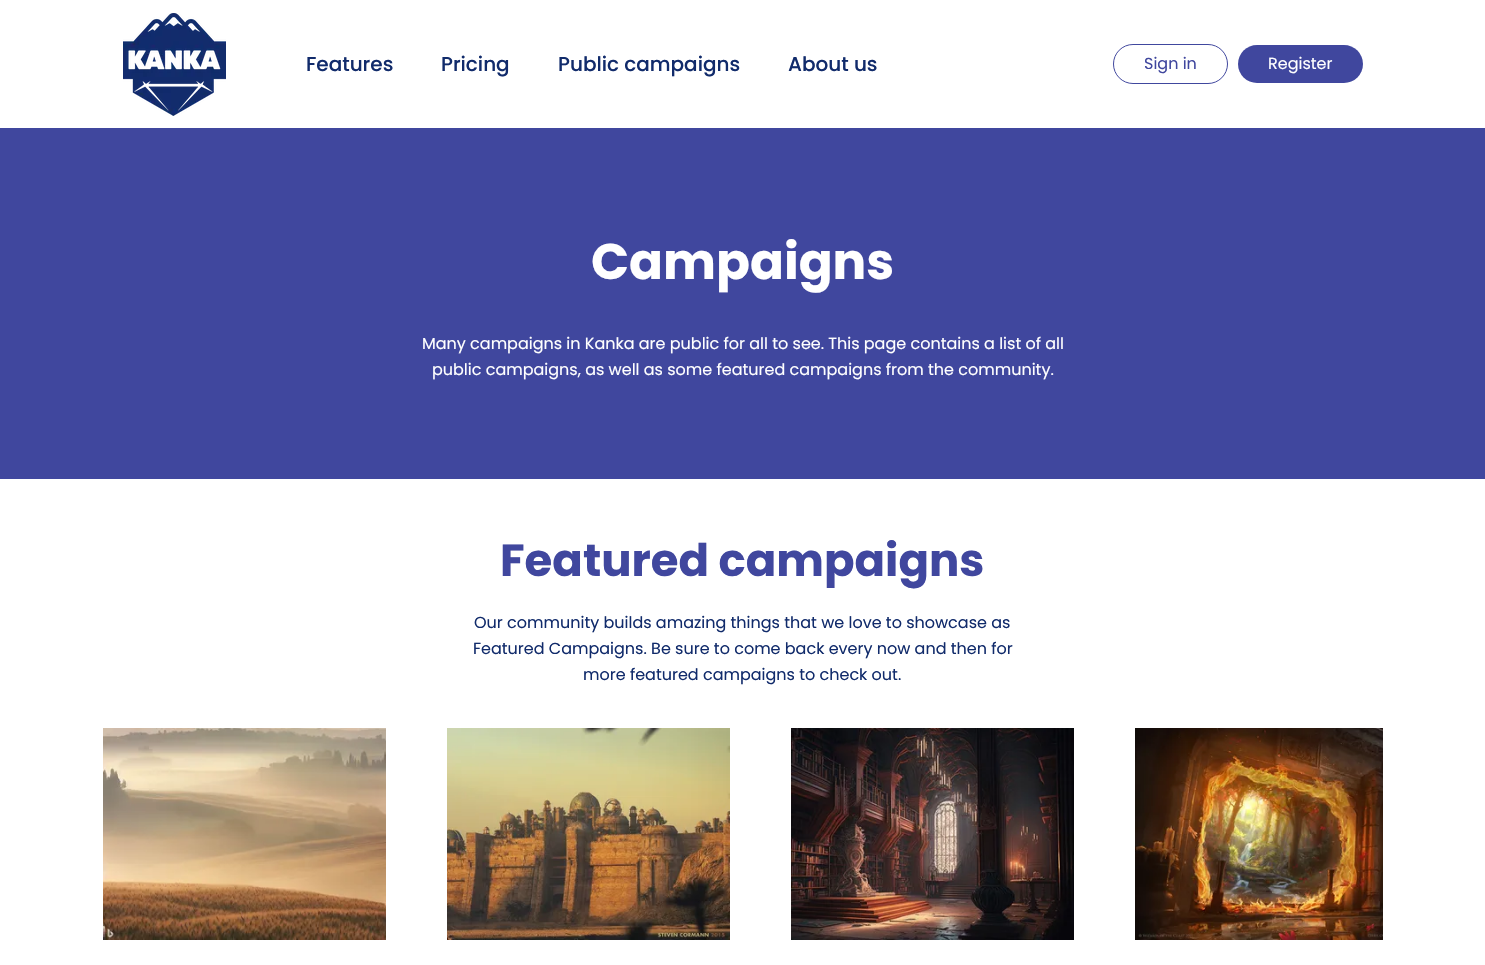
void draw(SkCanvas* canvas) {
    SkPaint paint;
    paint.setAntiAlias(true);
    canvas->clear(0xFFFFFFFF);
    canvas->drawImageRect(SkImages::DeferredFromEncodedData(SkData::MakeFromFileName("img1.png")), SkRect::MakeXYWH(123, 13, 103, 103), SkSamplingOptions());
    SkFont font1(fontMgr->matchFamilyStyle("Poppins", SkFontStyle(500, SkFontStyle::kNormal_Width, SkFontStyle::kUpright_Slant)), 20);
    font1.setSubpixel(true);
    paint.setColor(0xFF112B6B);
    canvas->drawString("Features", 306, 71, font1, paint);
    canvas->drawString("Pricing", 441, 71, font1, paint);
    canvas->drawString("Public campaigns", 558, 71, font1, paint);
    canvas->drawString("About us", 788, 71, font1, paint);
    paint.setStyle(SkPaint::kStroke_Style);
    paint.setStrokeWidth(1);
    paint.setColor(0xFF40479E);
    canvas->drawRoundRect(SkRect::MakeXYWH(1113.5f, 44.5f, 114, 39), 19.5f, 19.5f, paint);
    SkFont font2(fontMgr->matchFamilyStyle("Poppins", SkFontStyle::Normal()), 16);
    font2.setSubpixel(true);
    paint.setStyle(SkPaint::kFill_Style);
    canvas->drawString("Sign in", 1144, 69, font2, paint);
    canvas->drawRoundRect(SkRect::MakeXYWH(1238, 45, 125, 38), 19, 19, paint);
    paint.setColor(0xFFFFFFFF);
    canvas->drawString("Register", 1268, 69, font2, paint);
    paint.setColor(0xFF40479E);
    canvas->drawRect(SkRect::MakeXYWH(0, 128, 1485, 351), paint);
    SkFont font3(fontMgr->matchFamilyStyle("Poppins", SkFontStyle::Bold()), 50);
    font3.setSubpixel(true);
    paint.setColor(0xFFFFFFFF);
    canvas->drawString("Campaigns", 591, 279, font3, paint);
    canvas->drawString("Many campaigns in Kanka are public for all to see. This page contains a list of all", 422, 349, font2, paint);
    canvas->drawString("public campaigns, as well as some featured campaigns from the community.", 432, 375, font2, paint);
    SkFont font4(fontMgr->matchFamilyStyle("Poppins", SkFontStyle::Bold()), 45);
    font4.setSubpixel(true);
    paint.setColor(0xFF40479E);
    canvas->drawString("Featured campaigns", 500, 576, font4, paint);
    paint.setColor(0xFF112B6B);
    canvas->drawString("Our community builds amazing things that we love to showcase as", 474, 628, font2, paint);
    canvas->drawString("Featured Campaigns. Be sure to come back every now and then for", 473, 654, font2, paint);
    canvas->drawString("more featured campaigns to check out.", 583, 680, font2, paint);
    canvas->drawImageRect(SkImages::DeferredFromEncodedData(SkData::MakeFromFileName("img2.png")), SkRect::MakeXYWH(103, 728, 283, 212), SkSamplingOptions());
    canvas->drawImageRect(SkImages::DeferredFromEncodedData(SkData::MakeFromFileName("img3.png")), SkRect::MakeXYWH(447, 728, 283, 212), SkSamplingOptions());
    canvas->drawImageRect(SkImages::DeferredFromEncodedData(SkData::MakeFromFileName("img4.png")), SkRect::MakeXYWH(791, 728, 283, 212), SkSamplingOptions());
    canvas->drawImageRect(SkImages::DeferredFromEncodedData(SkData::MakeFromFileName("img5.png")), SkRect::MakeXYWH(1135, 728, 248, 212), SkSamplingOptions());
}
